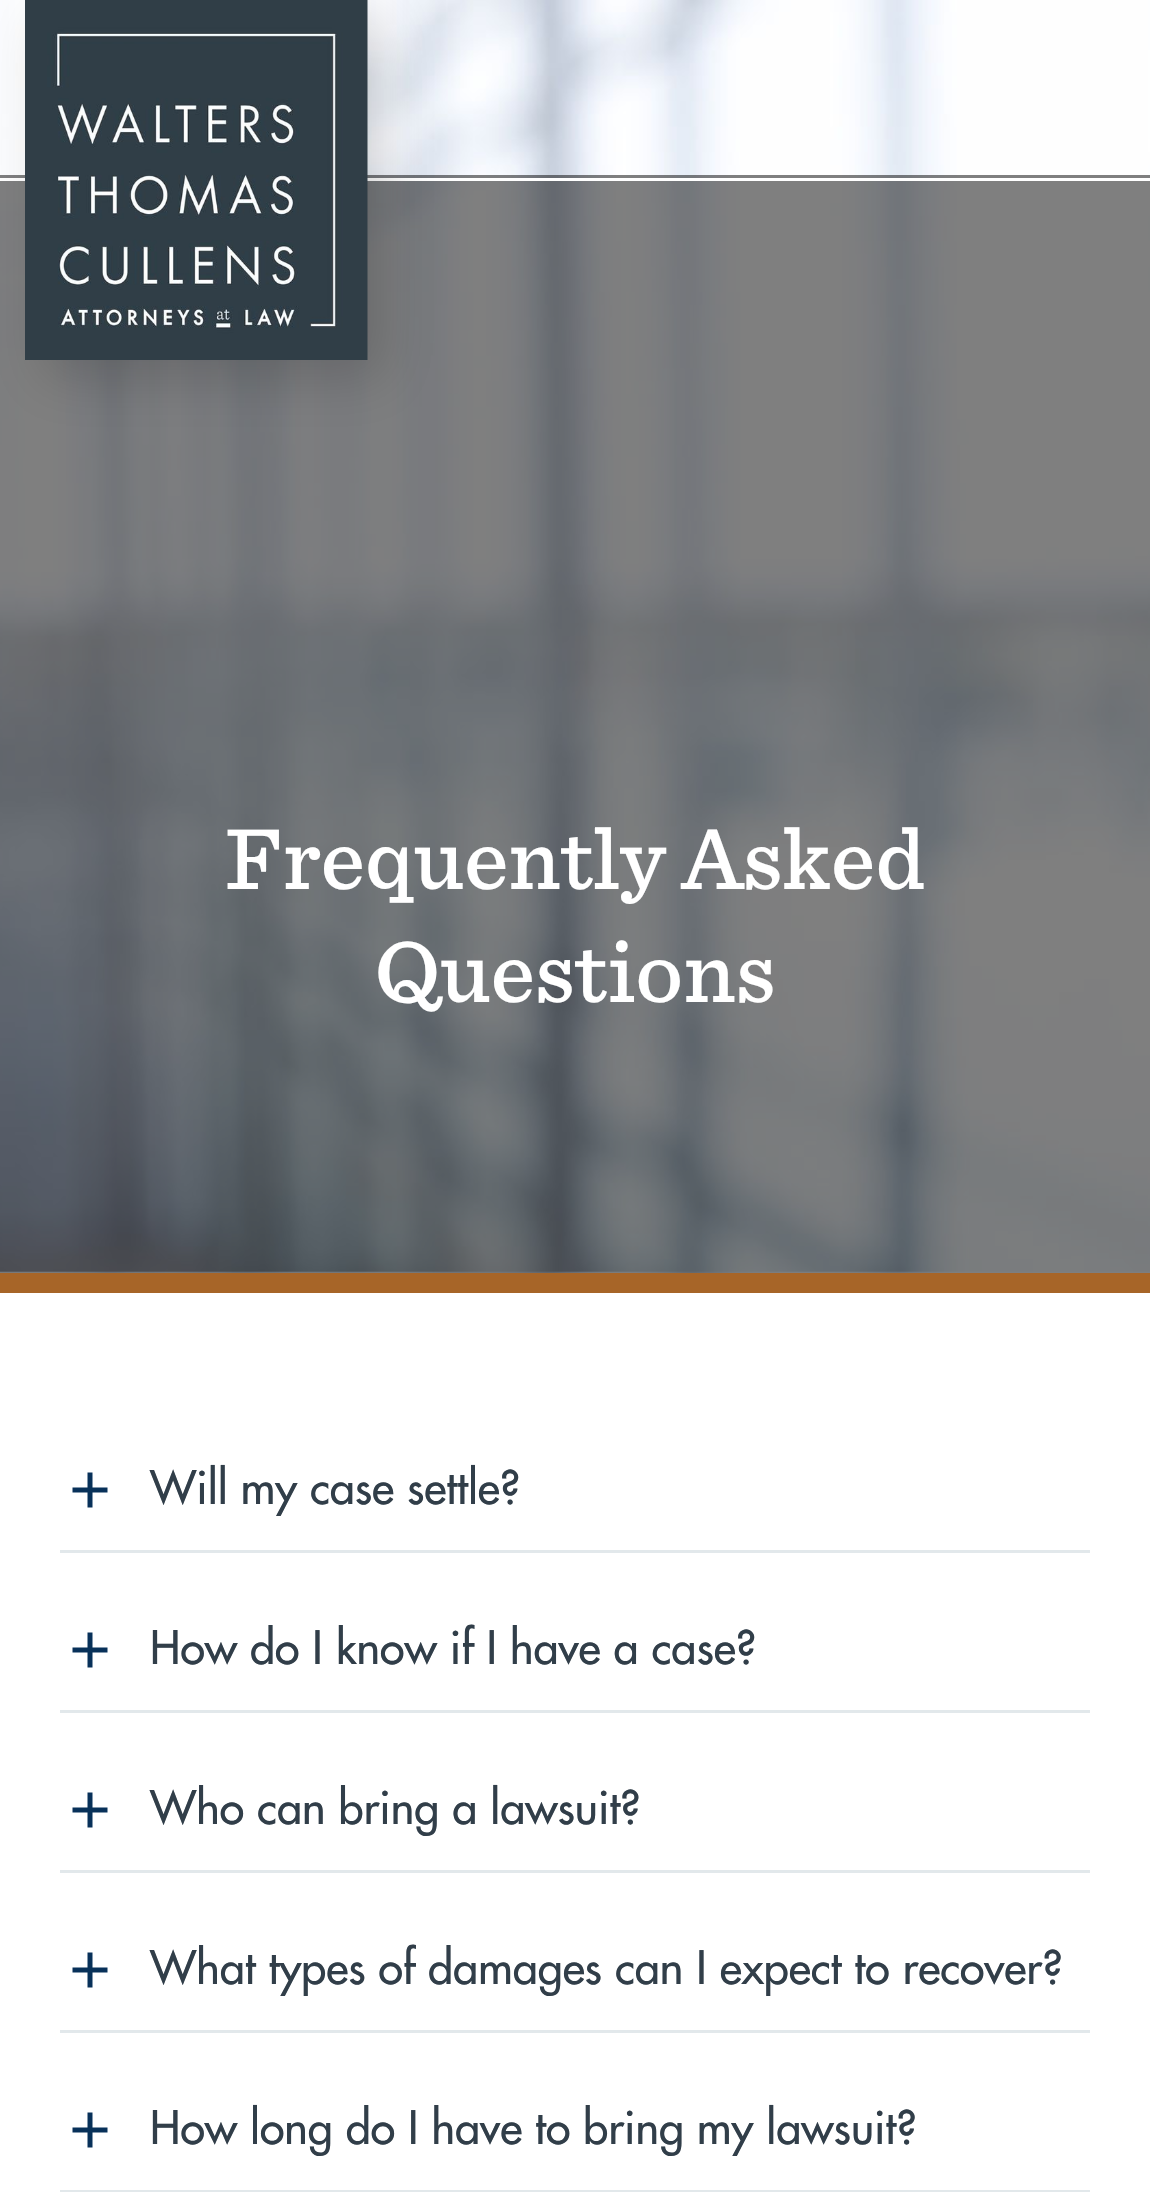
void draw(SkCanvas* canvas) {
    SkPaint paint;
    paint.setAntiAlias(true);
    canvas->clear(0xFFFFFFFF);
    canvas->drawImageRect(SkImages::DeferredFromEncodedData(SkData::MakeFromFileName("img2.png")), SkRect::MakeXYWH(0, 0, 1150, 1273), SkSamplingOptions());
    paint.setColor(0x80000000);
    canvas->drawRect(SkRect::MakeXYWH(0, 175, 1150, 1098), paint);
    paint.setColor(0xFFFFFFFF);
    canvas->drawRect(SkRect::MakeXYWH(0, 178, 1150, 3), paint);
    paint.setColor(0x29000000);
    paint.setMaskFilter(SkMaskFilter::MakeBlur(kNormal_SkBlurStyle, 25));
    canvas->drawRect(SkRect::MakeXYWH(43, 18, 342, 360), paint);
    paint.setMaskFilter(nullptr);
    canvas->drawImageRect(SkImages::DeferredFromEncodedData(SkData::MakeFromFileName("img1.png")), SkRect::MakeXYWH(25, 0, 343, 360), SkSamplingOptions());
    paint.setColor(0xFFA76528);
    canvas->drawRect(SkRect::MakeXYWH(0, 1273, 1150, 20), paint);
    SkFont font1(fontMgr->matchFamilyStyle("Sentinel", SkFontStyle(500, SkFontStyle::kNormal_Width, SkFontStyle::kUpright_Slant)), 90);
    font1.setSubpixel(true);
    paint.setColor(0xFFFFFFFF);
    canvas->drawString("Frequently Asked", 225, 889, font1, paint);
    canvas->drawString("Questions", 375, 1002, font1, paint);
    paint.setColor(0xFF083159);
    canvas->drawPath(SkPathBuilder().moveTo(107.5f, 1492.5f).lineTo(92.5f, 1492.5f).lineTo(92.5f, 1507.5f).lineTo(87.5f, 1507.5f).lineTo(87.5f, 1492.5f).lineTo(72.5f, 1492.5f).lineTo(72.5f, 1487.5f).lineTo(87.5f, 1487.5f).lineTo(87.5f, 1472.5f).lineTo(92.5f, 1472.5f).lineTo(92.5f, 1487.5f).lineTo(107.5f, 1487.5f).close().detach(), paint);
    SkFont font2(fontMgr->matchFamilyStyle("Futura", SkFontStyle(500, SkFontStyle::kNormal_Width, SkFontStyle::kUpright_Slant)), 45);
    font2.setSubpixel(true);
    paint.setColor(0xFF313E49);
    canvas->drawString("Will my case settle?", 150, 1504, font2, paint);
    paint.setColor(0xFFE2E8EB);
    canvas->drawRect(SkRect::MakeXYWH(60, 1550, 1030, 3), paint);
    paint.setColor(0xFF083159);
    canvas->drawPath(SkPathBuilder().moveTo(107.5f, 1652.5f).lineTo(92.5f, 1652.5f).lineTo(92.5f, 1667.5f).lineTo(87.5f, 1667.5f).lineTo(87.5f, 1652.5f).lineTo(72.5f, 1652.5f).lineTo(72.5f, 1647.5f).lineTo(87.5f, 1647.5f).lineTo(87.5f, 1632.5f).lineTo(92.5f, 1632.5f).lineTo(92.5f, 1647.5f).lineTo(107.5f, 1647.5f).close().detach(), paint);
    paint.setColor(0xFF313E49);
    canvas->drawString("How do I know if I have a case?", 150, 1664, font2, paint);
    paint.setColor(0xFFE2E8EB);
    canvas->drawRect(SkRect::MakeXYWH(60, 1710, 1030, 3), paint);
    paint.setColor(0xFF083159);
    canvas->drawPath(SkPathBuilder().moveTo(107.5f, 1812.5f).lineTo(92.5f, 1812.5f).lineTo(92.5f, 1827.5f).lineTo(87.5f, 1827.5f).lineTo(87.5f, 1812.5f).lineTo(72.5f, 1812.5f).lineTo(72.5f, 1807.5f).lineTo(87.5f, 1807.5f).lineTo(87.5f, 1792.5f).lineTo(92.5f, 1792.5f).lineTo(92.5f, 1807.5f).lineTo(107.5f, 1807.5f).close().detach(), paint);
    paint.setColor(0xFF313E49);
    canvas->drawString("Who can bring a lawsuit?", 150, 1824, font2, paint);
    paint.setColor(0xFFE2E8EB);
    canvas->drawRect(SkRect::MakeXYWH(60, 1870, 1030, 3), paint);
    paint.setColor(0xFF083159);
    canvas->drawPath(SkPathBuilder().moveTo(107.5f, 1972.5f).lineTo(92.5f, 1972.5f).lineTo(92.5f, 1987.5f).lineTo(87.5f, 1987.5f).lineTo(87.5f, 1972.5f).lineTo(72.5f, 1972.5f).lineTo(72.5f, 1967.5f).lineTo(87.5f, 1967.5f).lineTo(87.5f, 1952.5f).lineTo(92.5f, 1952.5f).lineTo(92.5f, 1967.5f).lineTo(107.5f, 1967.5f).close().detach(), paint);
    paint.setColor(0xFF313E49);
    canvas->drawString("What types of damages can I expect to recover?", 150, 1984, font2, paint);
    paint.setColor(0xFFE2E8EB);
    canvas->drawRect(SkRect::MakeXYWH(60, 2030, 1030, 3), paint);
    paint.setColor(0xFF083159);
    canvas->drawPath(SkPathBuilder().moveTo(107.5f, 2132.5f).lineTo(92.5f, 2132.5f).lineTo(92.5f, 2147.5f).lineTo(87.5f, 2147.5f).lineTo(87.5f, 2132.5f).lineTo(72.5f, 2132.5f).lineTo(72.5f, 2127.5f).lineTo(87.5f, 2127.5f).lineTo(87.5f, 2112.5f).lineTo(92.5f, 2112.5f).lineTo(92.5f, 2127.5f).lineTo(107.5f, 2127.5f).close().detach(), paint);
    paint.setColor(0xFF313E49);
    canvas->drawString("How long do I have to bring my lawsuit?", 150, 2144, font2, paint);
    paint.setColor(0xFFE2E8EB);
    canvas->drawRect(SkRect::MakeXYWH(60, 2190, 1030, 2), paint);
}
